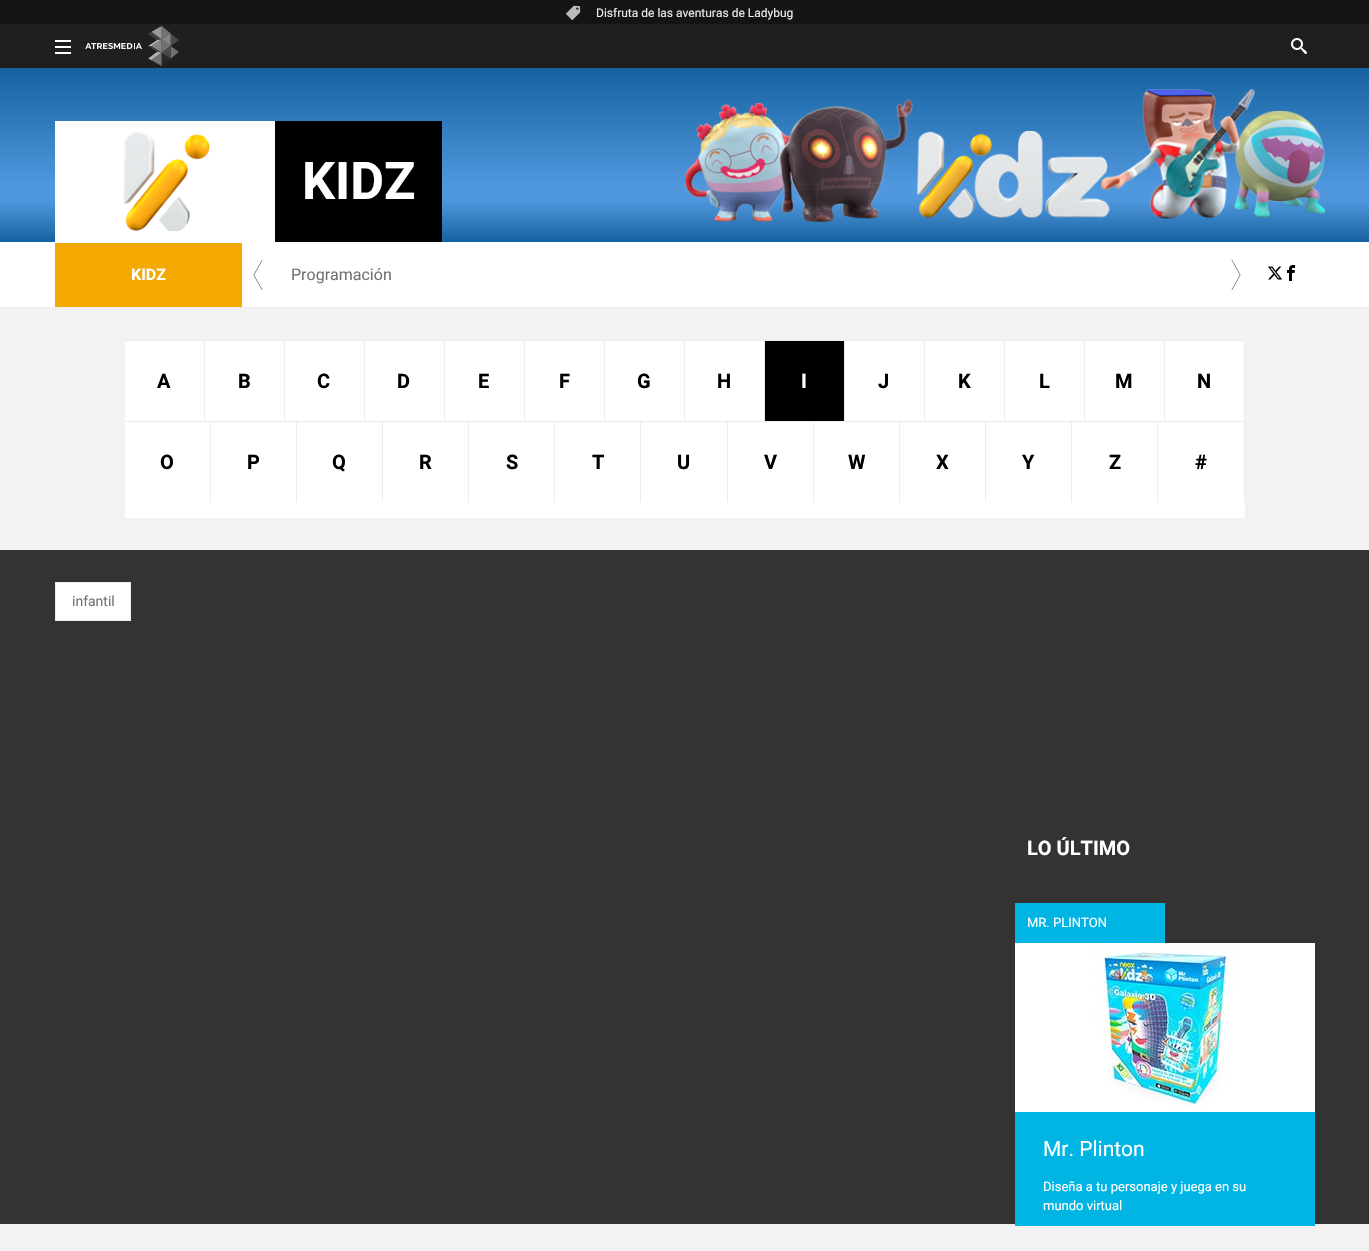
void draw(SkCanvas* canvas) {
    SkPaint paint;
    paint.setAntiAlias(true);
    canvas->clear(0xFF333333);
    paint.setColor(0xFF141414);
    canvas->drawRect(SkRect::MakeXYWH(0, 0, 1369, 24), paint);
    canvas->drawImageRect(SkImages::DeferredFromEncodedData(SkData::MakeFromFileName("img1.png")), SkRect::MakeXYWH(565, 5, 16, 16), SkSamplingOptions());
    SkFont font1(fontMgr->matchFamilyStyle("Roboto", SkFontStyle::Normal()), 12);
    font1.setSubpixel(true);
    paint.setColor(0xFFECECEC);
    canvas->drawString("Disfruta de las aventuras de Ladybug", 596, 17, font1, paint);
    paint.setColor(0xFF1F1F1F);
    canvas->drawRect(SkRect::MakeXYWH(0, 24, 1369, 44), paint);
    {
        const SkColor colors[] = {0xFF1662A0, 0xFF5098DE, 0xFF5098DE, 0xFF1662A0};
        const float stops[] = {0, 0.68f, 0.76f, 1};
        const SkPoint ends[] = {{685, 68}, {685, 242}};
        paint.setShader(SkGradientShader::MakeLinear(ends, colors, stops, 4, SkTileMode::kClamp));
        paint.setAlpha(255);
    }
    canvas->drawRect(SkRect::MakeXYWH(0, 68, 1369, 174), paint);
    canvas->drawImageRect(SkImages::DeferredFromEncodedData(SkData::MakeFromFileName("img2.png")), SkRect::MakeXYWH(685, 89, 640, 133), SkSamplingOptions());
    paint.setShader(nullptr);
    paint.setColor(0xFFFFFFFF);
    canvas->drawRect(SkRect::MakeXYWH(55, 46, 16, 2), paint);
    canvas->drawRect(SkRect::MakeXYWH(55, 40, 16, 2), paint);
    canvas->drawRect(SkRect::MakeXYWH(55, 52, 16, 2), paint);
    canvas->drawImageRect(SkImages::DeferredFromEncodedData(SkData::MakeFromFileName("img3.png")), SkRect::MakeXYWH(85, 26, 94, 40), SkSamplingOptions());
    canvas->drawImageRect(SkImages::DeferredFromEncodedData(SkData::MakeFromFileName("img4.png")), SkRect::MakeXYWH(1291, 38, 16, 16), SkSamplingOptions());
    canvas->drawRect(SkRect::MakeXYWH(55, 121, 220, 121), paint);
    canvas->drawImageRect(SkImages::DeferredFromEncodedData(SkData::MakeFromFileName("img5.png")), SkRect::MakeXYWH(123, 132, 87, 99), SkSamplingOptions());
    paint.setColor(0xFF000000);
    canvas->drawRect(SkRect::MakeXYWH(275, 121, 167, 121), paint);
    SkFont font2(fontMgr->matchFamilyStyle("Roboto", SkFontStyle::Bold()), 52);
    font2.setSubpixel(true);
    paint.setColor(0xFFFFFFFF);
    canvas->drawString("KIDZ", 302, 199, font2, paint);
    canvas->drawRect(SkRect::MakeXYWH(0, 242, 1369, 65), paint);
    paint.setColor(0xFFECECEC);
    canvas->drawRect(SkRect::MakeXYWH(0, 307, 1369, 1), paint);
    paint.setColor(0xFFF3A802);
    canvas->drawRect(SkRect::MakeXYWH(55, 243, 187, 64), paint);
    SkFont font3(fontMgr->matchFamilyStyle("Roboto", SkFontStyle::Bold()), 16);
    font3.setSubpixel(true);
    paint.setColor(0xFFFFFFFF);
    canvas->drawString("KIDZ", 131, 280, font3, paint);
    paint.setColor(0xFF1F1F1F);
    canvas->drawPath(SkPathBuilder().moveTo(262, 260).lineTo(262.5f, 260).lineTo(254, 275).lineTo(262.5f, 290).lineTo(262, 290).lineTo(253.5f, 275).close().detach(), paint);
    SkFont font4(fontMgr->matchFamilyStyle("Roboto", SkFontStyle::Normal()), 16);
    font4.setSubpixel(true);
    paint.setColor(0xFF727272);
    canvas->drawString("Programación", 291, 280, font4, paint);
    paint.setColor(0xFF1F1F1F);
    canvas->drawPath(SkPathBuilder().moveTo(1232, 290).lineTo(1231.5f, 290).lineTo(1240, 275).lineTo(1231.5f, 260).lineTo(1232, 260).lineTo(1240.5f, 275).close().detach(), paint);
    canvas->drawImageRect(SkImages::DeferredFromEncodedData(SkData::MakeFromFileName("img6.png")), SkRect::MakeXYWH(1268, 266, 15, 14), SkSamplingOptions());
    canvas->drawImageRect(SkImages::DeferredFromEncodedData(SkData::MakeFromFileName("img7.png")), SkRect::MakeXYWH(1287, 265, 8, 16), SkSamplingOptions());
    paint.setColor(0xFFF2F2F2);
    canvas->drawRect(SkRect::MakeXYWH(0, 308, 1369, 242), paint);
    paint.setColor(0xFFFFFFFF);
    canvas->drawRect(SkRect::MakeXYWH(125, 341, 1120, 177), paint);
    paint.setColor(0xFFECECEC);
    canvas->drawRect(SkRect::MakeXYWH(125, 340, 1120, 1), paint);
    canvas->drawRect(SkRect::MakeXYWH(204, 340, 1, 81), paint);
    SkFont font5(fontMgr->matchFamilyStyle("Roboto", SkFontStyle::Bold()), 20);
    font5.setSubpixel(true);
    paint.setColor(0xFF000000);
    canvas->drawString("A", 157, 388, font5, paint);
    paint.setColor(0xFFECECEC);
    canvas->drawRect(SkRect::MakeXYWH(284, 340, 1, 81), paint);
    paint.setColor(0xFF000000);
    canvas->drawString("B", 238, 388, font5, paint);
    paint.setColor(0xFFECECEC);
    canvas->drawRect(SkRect::MakeXYWH(364, 340, 1, 81), paint);
    paint.setColor(0xFF000000);
    canvas->drawString("C", 317, 388, font5, paint);
    paint.setColor(0xFFECECEC);
    canvas->drawRect(SkRect::MakeXYWH(444, 340, 1, 81), paint);
    paint.setColor(0xFF000000);
    canvas->drawString("D", 397, 388, font5, paint);
    paint.setColor(0xFFECECEC);
    canvas->drawRect(SkRect::MakeXYWH(524, 340, 1, 81), paint);
    paint.setColor(0xFF000000);
    canvas->drawString("E", 478, 388, font5, paint);
    paint.setColor(0xFFECECEC);
    canvas->drawRect(SkRect::MakeXYWH(604, 340, 1, 81), paint);
    paint.setColor(0xFF000000);
    canvas->drawString("F", 559, 388, font5, paint);
    paint.setColor(0xFFECECEC);
    canvas->drawRect(SkRect::MakeXYWH(684, 340, 1, 81), paint);
    paint.setColor(0xFF000000);
    canvas->drawString("G", 637, 388, font5, paint);
    paint.setColor(0xFFECECEC);
    canvas->drawRect(SkRect::MakeXYWH(764, 340, 1, 81), paint);
    paint.setColor(0xFF000000);
    canvas->drawString("H", 717, 388, font5, paint);
    canvas->drawRect(SkRect::MakeXYWH(765, 341, 79, 80), paint);
    paint.setColor(0xFFECECEC);
    canvas->drawRect(SkRect::MakeXYWH(844, 340, 1, 81), paint);
    paint.setColor(0xFFFFFFFF);
    canvas->drawString("I", 801, 388, font5, paint);
    paint.setColor(0xFFECECEC);
    canvas->drawRect(SkRect::MakeXYWH(924, 340, 1, 81), paint);
    paint.setColor(0xFF000000);
    canvas->drawString("J", 878, 388, font5, paint);
    paint.setColor(0xFFECECEC);
    canvas->drawRect(SkRect::MakeXYWH(1004, 340, 1, 81), paint);
    paint.setColor(0xFF000000);
    canvas->drawString("K", 958, 388, font5, paint);
    paint.setColor(0xFFECECEC);
    canvas->drawRect(SkRect::MakeXYWH(1084, 340, 1, 81), paint);
    paint.setColor(0xFF000000);
    canvas->drawString("L", 1039, 388, font5, paint);
    paint.setColor(0xFFECECEC);
    canvas->drawRect(SkRect::MakeXYWH(1164, 340, 1, 81), paint);
    paint.setColor(0xFF000000);
    canvas->drawString("M", 1115, 388, font5, paint);
    paint.setColor(0xFFECECEC);
    canvas->drawRect(SkRect::MakeXYWH(1244, 340, 1, 81), paint);
    paint.setColor(0xFF000000);
    canvas->drawString("N", 1197, 388, font5, paint);
    paint.setColor(0xFFECECEC);
    canvas->drawRect(SkRect::MakeXYWH(125, 421, 1120, 1), paint);
    canvas->drawRect(SkRect::MakeXYWH(210, 421, 1, 81), paint);
    paint.setColor(0xFF000000);
    canvas->drawString("O", 160, 469, font5, paint);
    paint.setColor(0xFFECECEC);
    canvas->drawRect(SkRect::MakeXYWH(296, 421, 1, 81), paint);
    paint.setColor(0xFF000000);
    canvas->drawString("P", 247, 469, font5, paint);
    paint.setColor(0xFFECECEC);
    canvas->drawRect(SkRect::MakeXYWH(382, 421, 1, 81), paint);
    paint.setColor(0xFF000000);
    canvas->drawString("Q", 332, 469, font5, paint);
    paint.setColor(0xFFECECEC);
    canvas->drawRect(SkRect::MakeXYWH(468, 421, 1, 81), paint);
    paint.setColor(0xFF000000);
    canvas->drawString("R", 419, 469, font5, paint);
    paint.setColor(0xFFECECEC);
    canvas->drawRect(SkRect::MakeXYWH(554, 421, 1, 81), paint);
    paint.setColor(0xFF000000);
    canvas->drawString("S", 506, 469, font5, paint);
    paint.setColor(0xFFECECEC);
    canvas->drawRect(SkRect::MakeXYWH(640, 421, 1, 81), paint);
    paint.setColor(0xFF000000);
    canvas->drawString("T", 592, 469, font5, paint);
    paint.setColor(0xFFECECEC);
    canvas->drawRect(SkRect::MakeXYWH(727, 421, 1, 81), paint);
    paint.setColor(0xFF000000);
    canvas->drawString("U", 677, 469, font5, paint);
    paint.setColor(0xFFECECEC);
    canvas->drawRect(SkRect::MakeXYWH(813, 421, 1, 81), paint);
    paint.setColor(0xFF000000);
    canvas->drawString("V", 764, 469, font5, paint);
    paint.setColor(0xFFECECEC);
    canvas->drawRect(SkRect::MakeXYWH(899, 421, 1, 81), paint);
    paint.setColor(0xFF000000);
    canvas->drawString("W", 848, 469, font5, paint);
    paint.setColor(0xFFECECEC);
    canvas->drawRect(SkRect::MakeXYWH(985, 421, 1, 81), paint);
    paint.setColor(0xFF000000);
    canvas->drawString("X", 936, 469, font5, paint);
    paint.setColor(0xFFECECEC);
    canvas->drawRect(SkRect::MakeXYWH(1071, 421, 1, 81), paint);
    paint.setColor(0xFF000000);
    canvas->drawString("Y", 1022, 469, font5, paint);
    paint.setColor(0xFFECECEC);
    canvas->drawRect(SkRect::MakeXYWH(1157, 421, 1, 81), paint);
    paint.setColor(0xFF000000);
    canvas->drawString("Z", 1109, 469, font5, paint);
    paint.setColor(0xFFECECEC);
    canvas->drawRect(SkRect::MakeXYWH(1244, 421, 1, 81), paint);
    paint.setColor(0xFF000000);
    canvas->drawString("#", 1195, 469, font5, paint);
    paint.setColor(0xFFFFFFFF);
    canvas->drawRect(SkRect::MakeXYWH(55.5f, 582.5f, 75, 38), paint);
    paint.setStyle(SkPaint::kStroke_Style);
    paint.setStrokeWidth(1);
    paint.setColor(0xFFECECEC);
    canvas->drawRect(SkRect::MakeXYWH(55.5f, 582.5f, 75, 38), paint);
    SkFont font6(fontMgr->matchFamilyStyle("Roboto", SkFontStyle::Normal()), 14);
    font6.setSubpixel(true);
    paint.setStyle(SkPaint::kFill_Style);
    paint.setColor(0xFF727272);
    canvas->drawString("infantil", 72, 606, font6, paint);
    paint.setColor(0xFFFFFFFF);
    canvas->drawString("LO ÚLTIMO", 1027, 855, font5, paint);
    paint.setColor(0xFF00B5E4);
    canvas->drawRect(SkRect::MakeXYWH(1015, 903, 150, 40), paint);
    SkFont font7(fontMgr->matchFamilyStyle("Roboto", SkFontStyle::Normal()), 13);
    font7.setSubpixel(true);
    paint.setColor(0xFFFFFFFF);
    canvas->drawString("MR. PLINTON", 1027, 927, font7, paint);
    canvas->drawImageRect(SkImages::DeferredFromEncodedData(SkData::MakeFromFileName("img8.png")), SkRect::MakeXYWH(1015, 943, 300, 169), SkSamplingOptions());
    paint.setColor(0xFFF2F2F2);
    canvas->drawRect(SkRect::MakeXYWH(0, 1224, 1369, 27), paint);
    paint.setColor(0xFF00B5E4);
    canvas->drawRect(SkRect::MakeXYWH(1015, 1112, 300, 114), paint);
    SkFont font8(fontMgr->matchFamilyStyle("Roboto", SkFontStyle::Normal()), 21);
    font8.setSubpixel(true);
    paint.setColor(0xFFFFFFFF);
    canvas->drawString("Mr. Plinton", 1043, 1156, font8, paint);
    canvas->drawString("Diseña a tu personaje y juega en su", 1043, 1191, font7, paint);
    canvas->drawString("mundo virtual", 1043, 1210, font7, paint);
}
